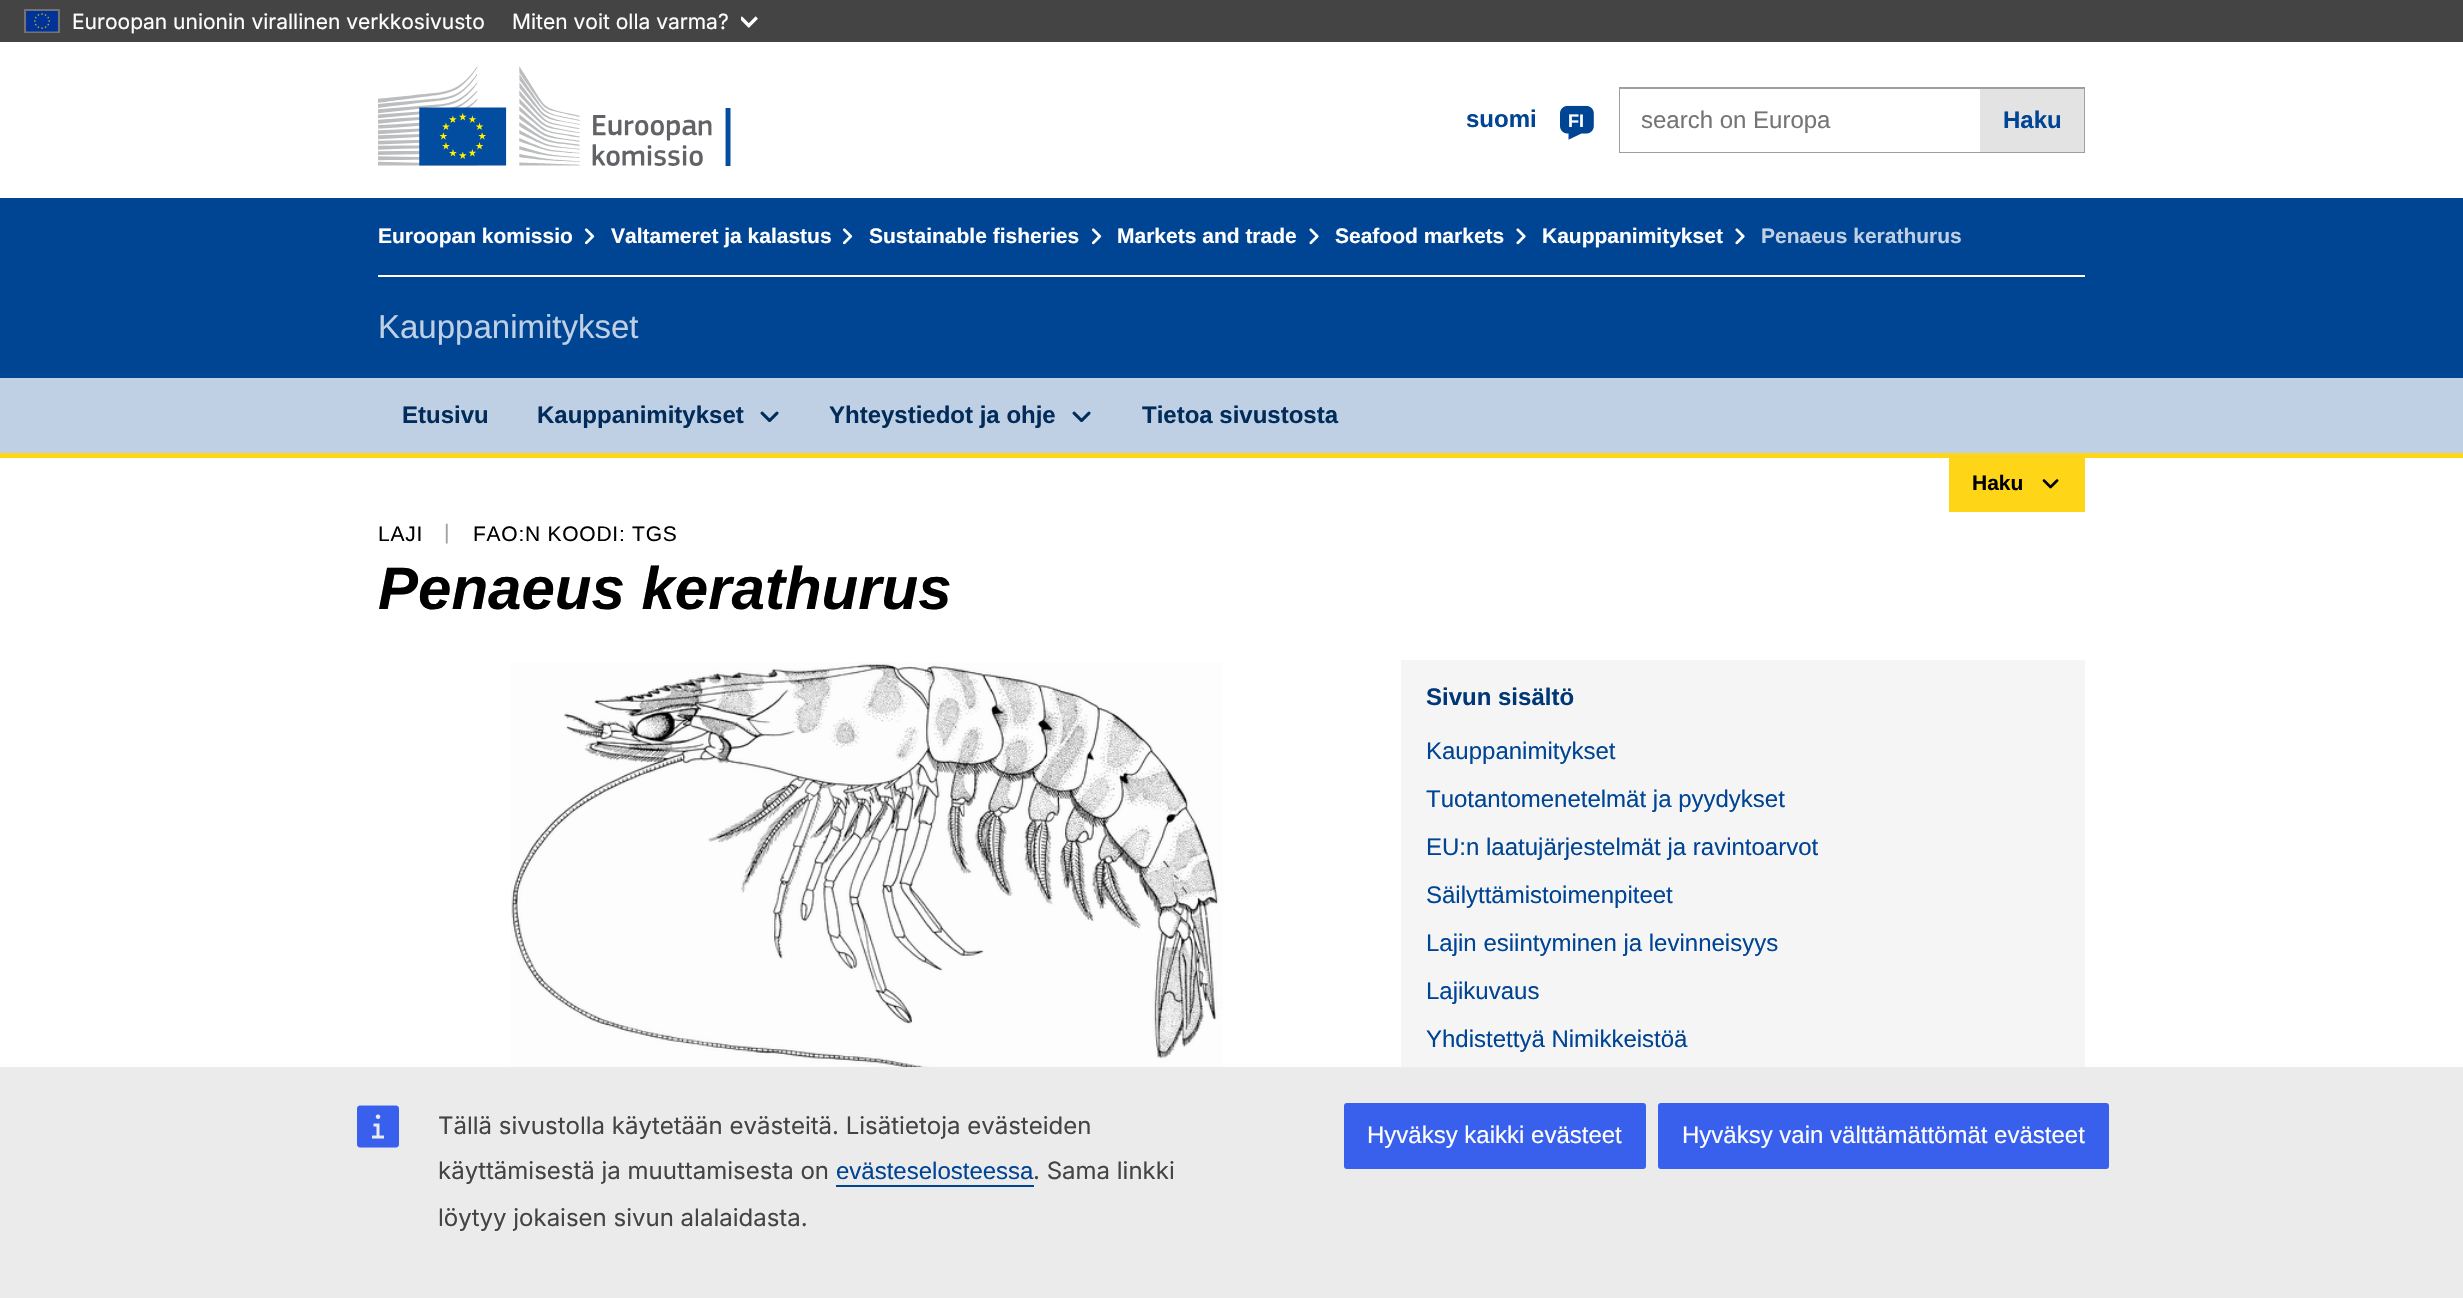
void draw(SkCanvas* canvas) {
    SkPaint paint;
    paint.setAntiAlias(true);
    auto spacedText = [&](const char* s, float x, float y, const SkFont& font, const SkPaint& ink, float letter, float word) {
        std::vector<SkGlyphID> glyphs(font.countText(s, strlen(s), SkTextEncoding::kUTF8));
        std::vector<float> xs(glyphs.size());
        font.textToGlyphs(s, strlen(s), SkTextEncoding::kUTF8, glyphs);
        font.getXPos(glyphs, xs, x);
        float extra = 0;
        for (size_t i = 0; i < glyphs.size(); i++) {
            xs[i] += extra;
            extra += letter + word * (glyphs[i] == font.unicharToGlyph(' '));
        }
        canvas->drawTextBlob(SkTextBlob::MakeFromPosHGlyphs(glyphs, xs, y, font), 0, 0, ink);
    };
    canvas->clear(0xFFFFFFFF);
    paint.setColor(0xFF444444);
    canvas->drawRect(SkRect::MakeXYWH(0, 0, 2463, 42), paint);
    paint.setStyle(SkPaint::kStroke_Style);
    paint.setStrokeWidth(2);
    paint.setColor(0xFF737373);
    canvas->drawRect(SkRect::MakeXYWH(25, 10, 34, 22), paint);
    canvas->drawImageRect(SkImages::DeferredFromEncodedData(SkData::MakeFromFileName("img1.png")), SkRect::MakeXYWH(26, 11, 32, 21), SkSamplingOptions());
    SkFont font1(fontMgr->matchFamilyStyle("Inter", SkFontStyle::Normal()), 21);
    font1.setSubpixel(true);
    paint.setStyle(SkPaint::kFill_Style);
    paint.setColor(0xFFFFFFFF);
    canvas->drawString("Euroopan unionin virallinen verkkosivusto", 72, 29, font1, paint);
    canvas->drawString("Miten voit olla varma?", 512, 29, font1, paint);
    canvas->drawImageRect(SkImages::DeferredFromEncodedData(SkData::MakeFromFileName("img2.png")), SkRect::MakeXYWH(741, 16, 17, 12), SkSamplingOptions());
    canvas->drawImageRect(SkImages::DeferredFromEncodedData(SkData::MakeFromFileName("img3.png")), SkRect::MakeXYWH(378, 66, 353, 101), SkSamplingOptions());
    SkFont font2(fontMgr->matchFamilyStyle("Liberation Sans", SkFontStyle::Bold()), 24);
    font2.setSubpixel(true);
    paint.setColor(0xFF004494);
    canvas->drawString("suomi", 1466, 127, font2, paint);
    canvas->drawImageRect(SkImages::DeferredFromEncodedData(SkData::MakeFromFileName("img4.png")), SkRect::MakeXYWH(1560, 105, 34, 35), SkSamplingOptions());
    SkFont font3(fontMgr->matchFamilyStyle("Liberation Sans", SkFontStyle::Bold()), 18);
    font3.setSubpixel(true);
    paint.setColor(0xFFFFFFFF);
    canvas->drawString("FI", 1568, 127, font3, paint);
    paint.setStyle(SkPaint::kStroke_Style);
    paint.setColor(0xFF9F9F9F);
    canvas->drawRect(SkRect::MakeXYWH(1620, 88, 464, 64), paint);
    paint.setStyle(SkPaint::kFill_Style);
    paint.setColor(0xFFFFFFFF);
    canvas->drawRect(SkRect::MakeXYWH(1620, 89, 360, 63), paint);
    SkFont font4(fontMgr->matchFamilyStyle("Liberation Sans", SkFontStyle::Normal()), 24);
    font4.setSubpixel(true);
    paint.setColor(0xFF757575);
    canvas->drawString("search on Europa", 1641, 128, font4, paint);
    paint.setColor(0xFFE3E3E3);
    canvas->drawRect(SkRect::MakeXYWH(1980, 89, 104, 63), paint);
    paint.setColor(0xFF004494);
    canvas->drawString("Haku", 2003, 128, font2, paint);
    canvas->drawRect(SkRect::MakeXYWH(0, 198, 2463, 180), paint);
    paint.setColor(0xFFFFFFFF);
    canvas->drawRect(SkRect::MakeXYWH(378, 275, 1707, 2), paint);
    SkFont font5(fontMgr->matchFamilyStyle("Liberation Sans", SkFontStyle::Bold()), 21);
    font5.setSubpixel(true);
    canvas->drawString("Euroopan komissio", 378, 243, font5, paint);
    canvas->drawImageRect(SkImages::DeferredFromEncodedData(SkData::MakeFromFileName("img5.png")), SkRect::MakeXYWH(584, 228, 11, 17), SkSamplingOptions());
    canvas->drawString("Valtameret ja kalastus", 611, 243, font5, paint);
    canvas->drawImageRect(SkImages::DeferredFromEncodedData(SkData::MakeFromFileName("img5.png")), SkRect::MakeXYWH(842, 228, 11, 17), SkSamplingOptions());
    canvas->drawString("Sustainable fisheries", 869, 243, font5, paint);
    canvas->drawImageRect(SkImages::DeferredFromEncodedData(SkData::MakeFromFileName("img5.png")), SkRect::MakeXYWH(1091, 228, 11, 17), SkSamplingOptions());
    canvas->drawString("Markets and trade", 1117, 243, font5, paint);
    canvas->drawImageRect(SkImages::DeferredFromEncodedData(SkData::MakeFromFileName("img6.png")), SkRect::MakeXYWH(1309, 228, 10, 17), SkSamplingOptions());
    canvas->drawString("Seafood markets", 1335, 243, font5, paint);
    canvas->drawImageRect(SkImages::DeferredFromEncodedData(SkData::MakeFromFileName("img6.png")), SkRect::MakeXYWH(1516, 228, 10, 17), SkSamplingOptions());
    canvas->drawString("Kauppanimitykset", 1542, 243, font5, paint);
    canvas->drawImageRect(SkImages::DeferredFromEncodedData(SkData::MakeFromFileName("img6.png")), SkRect::MakeXYWH(1735, 228, 10, 17), SkSamplingOptions());
    paint.setColor(0xFFBFD0E4);
    canvas->drawString("Penaeus kerathurus", 1761, 243, font5, paint);
    SkFont font6(fontMgr->matchFamilyStyle("Liberation Sans", SkFontStyle::Normal()), 33);
    font6.setSubpixel(true);
    canvas->drawString("Kauppanimitykset", 378, 338, font6, paint);
    canvas->drawRect(SkRect::MakeXYWH(0, 378, 2463, 75), paint);
    paint.setColor(0xFF012B58);
    canvas->drawString("Etusivu", 402, 423, font2, paint);
    canvas->drawString("Kauppanimitykset", 537, 423, font2, paint);
    canvas->drawImageRect(SkImages::DeferredFromEncodedData(SkData::MakeFromFileName("img7.png")), SkRect::MakeXYWH(760, 411, 19, 12), SkSamplingOptions());
    canvas->drawString("Yhteystiedot ja ohje", 829, 423, font2, paint);
    canvas->drawImageRect(SkImages::DeferredFromEncodedData(SkData::MakeFromFileName("img7.png")), SkRect::MakeXYWH(1072, 411, 19, 12), SkSamplingOptions());
    canvas->drawString("Tietoa sivustosta", 1142, 423, font2, paint);
    paint.setColor(0xFFFFD617);
    canvas->drawRect(SkRect::MakeXYWH(0, 453, 2463, 5), paint);
    canvas->drawRect(SkRect::MakeXYWH(1949, 458, 136, 54), paint);
    paint.setColor(0xFF000000);
    canvas->drawString("Haku", 1972, 490, font5, paint);
    canvas->drawImageRect(SkImages::DeferredFromEncodedData(SkData::MakeFromFileName("img8.png")), SkRect::MakeXYWH(2042, 479, 17, 10), SkSamplingOptions());
    SkFont font7(fontMgr->matchFamilyStyle("Liberation Sans", SkFontStyle::Normal()), 21);
    font7.setSubpixel(true);
    spacedText("LAJI", 378, 541, font7, paint, 0.75f, 0);
    paint.setColor(0xFF9F9F9F);
    spacedText("|", 444, 539, font7, paint, 0.75f, 0);
    paint.setColor(0xFF000000);
    spacedText("FAO:N KOODI: TGS", 473, 541, font7, paint, 0.75f, 0);
    SkFont font8(fontMgr->matchFamilyStyle("Liberation Sans", SkFontStyle::BoldItalic()), 60);
    font8.setSubpixel(true);
    canvas->drawString("Penaeus kerathurus", 378, 609, font8, paint);
    canvas->drawImageRect(SkImages::DeferredFromEncodedData(SkData::MakeFromFileName("img9.png")), SkRect::MakeXYWH(511, 662, 712, 405), SkSamplingOptions());
    paint.setColor(0xFFF5F5F5);
    canvas->drawRect(SkRect::MakeXYWH(1401, 660, 684, 407), paint);
    paint.setColor(0xFF003776);
    canvas->drawString("Sivun sisältö", 1426, 705, font2, paint);
    paint.setColor(0xFF004494);
    canvas->drawString("Kauppanimitykset", 1426, 759, font4, paint);
    canvas->drawString("Tuotantomenetelmät ja pyydykset", 1426, 807, font4, paint);
    canvas->drawString("EU:n laatujärjestelmät ja ravintoarvot", 1426, 855, font4, paint);
    canvas->drawString("Säilyttämistoimenpiteet", 1426, 903, font4, paint);
    canvas->drawString("Lajin esiintyminen ja levinneisyys", 1426, 951, font4, paint);
    canvas->drawString("Lajikuvaus", 1426, 999, font4, paint);
    canvas->drawString("Yhdistettyä Nimikkeistöä", 1426, 1047, font4, paint);
    paint.setColor(0xFFEBEBEB);
    canvas->drawRect(SkRect::MakeXYWH(0, 1067, 2463, 231), paint);
    canvas->drawImageRect(SkImages::DeferredFromEncodedData(SkData::MakeFromFileName("img10.png")), SkRect::MakeXYWH(357, 1105, 42, 43), SkSamplingOptions());
    SkFont font9(fontMgr->matchFamilyStyle("Inter", SkFontStyle::Normal()), 24);
    font9.setSubpixel(true);
    paint.setColor(0xFF444444);
    canvas->drawString("Tällä sivustolla käytetään evästeitä. Lisätietoja evästeiden", 438, 1134, font9, paint);
    canvas->drawString("käyttämisestä ja muuttamisesta on", 438, 1179, font9, paint);
    paint.setColor(0xFF004494);
    canvas->drawString("evästeselosteessa", 836, 1179, font4, paint);
    canvas->drawRect(SkRect::MakeXYWH(836, 1185, 198, 2), paint);
    paint.setColor(0xFF444444);
    canvas->drawString(". Sama linkki", 1033, 1179, font9, paint);
    canvas->drawString("löytyy jokaisen sivun alalaidasta.", 438, 1226, font9, paint);
    paint.setColor(0xFF3860ED);
    canvas->drawRoundRect(SkRect::MakeXYWH(1344, 1103, 302, 66), 3, 3, paint);
    paint.setColor(0xFFFFFFFF);
    canvas->drawString("Hyväksy kaikki evästeet", 1367, 1143, font4, paint);
    paint.setColor(0xFF3860ED);
    canvas->drawRoundRect(SkRect::MakeXYWH(1658, 1103, 451, 66), 3, 3, paint);
    paint.setColor(0xFFFFFFFF);
    canvas->drawString("Hyväksy vain välttämättömät evästeet", 1682, 1143, font4, paint);
}
